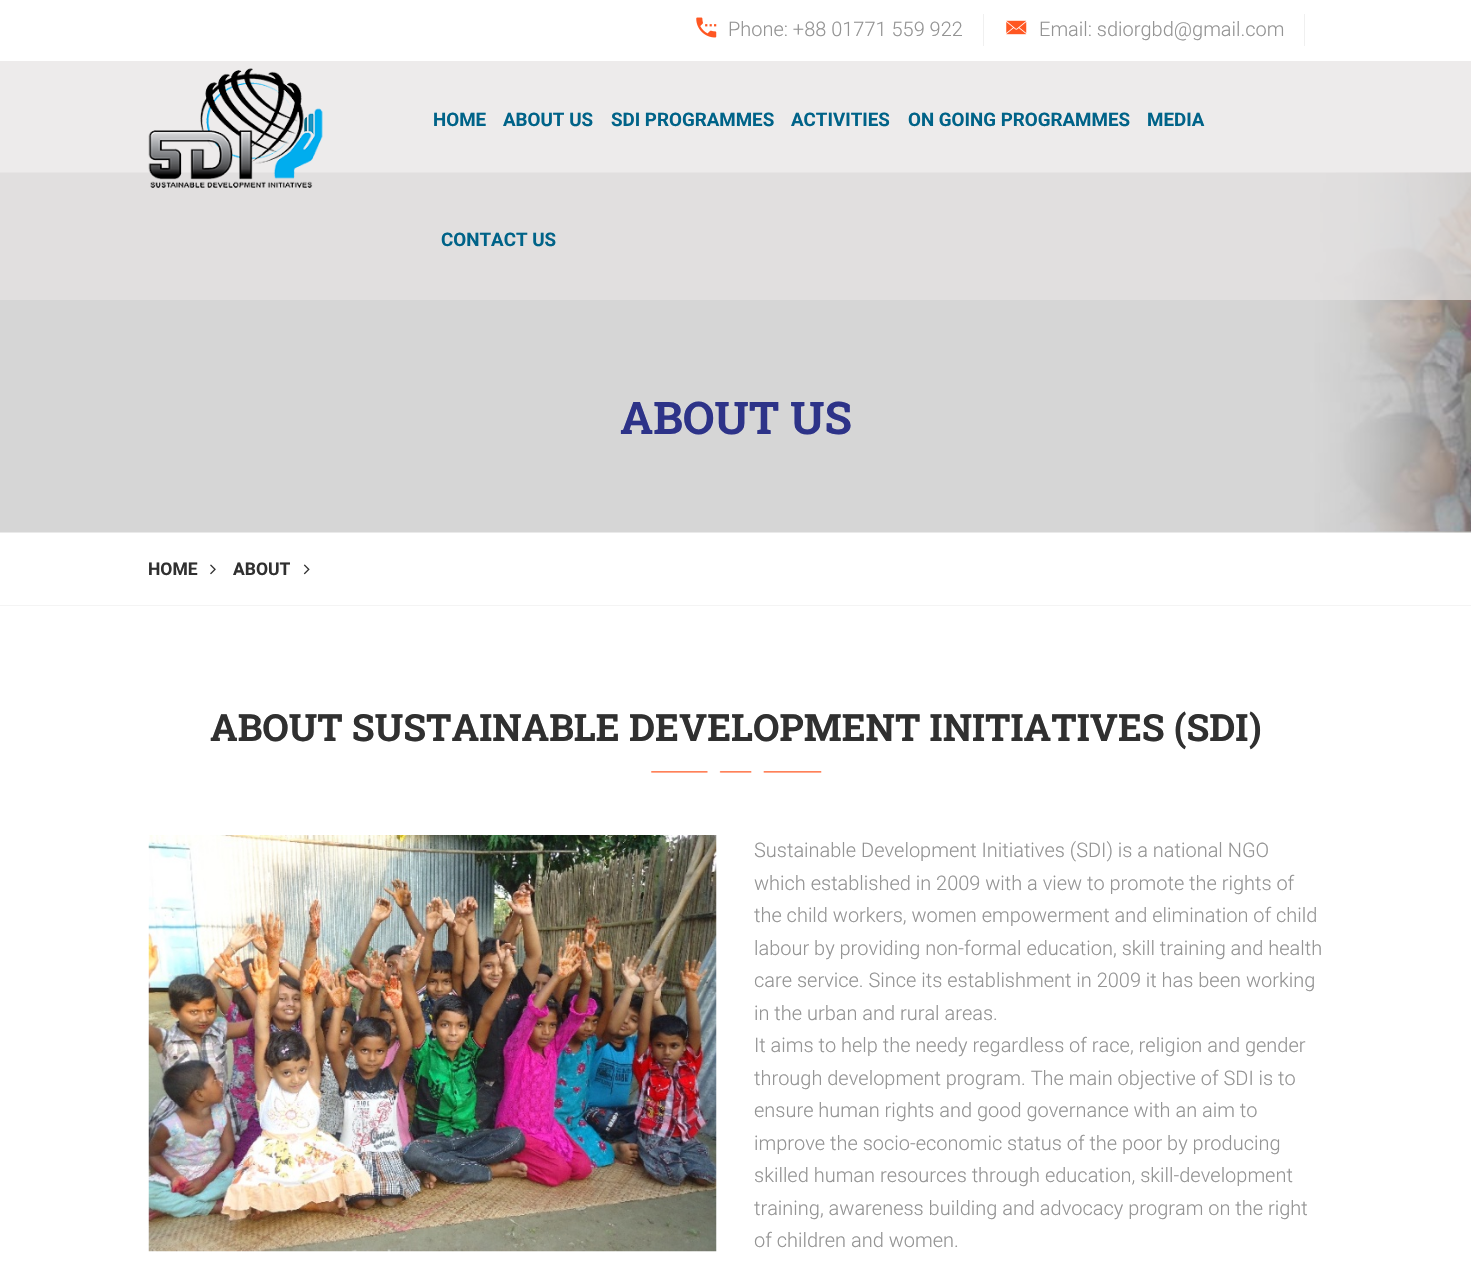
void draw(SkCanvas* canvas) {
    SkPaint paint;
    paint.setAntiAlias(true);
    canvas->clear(0xFFFFFFFF);
    paint.setColor(0xFFF0F0F0);
    canvas->drawRect(SkRect::MakeXYWH(983, 14, 1, 32), paint);
    canvas->drawImageRect(SkImages::DeferredFromEncodedData(SkData::MakeFromFileName("img1.png")), SkRect::MakeXYWH(696, 17, 21, 21), SkSamplingOptions());
    SkFont font1(fontMgr->matchFamilyStyle("Roboto", SkFontStyle(300, SkFontStyle::kNormal_Width, SkFontStyle::kUpright_Slant)), 20);
    font1.setSubpixel(true);
    paint.setColor(0xFF949494);
    canvas->drawString("Phone: +88 01771 559 922", 728, 36, font1, paint);
    paint.setColor(0xFFF0F0F0);
    canvas->drawRect(SkRect::MakeXYWH(1304, 14, 1, 32), paint);
    canvas->drawImageRect(SkImages::DeferredFromEncodedData(SkData::MakeFromFileName("img2.png")), SkRect::MakeXYWH(1006, 20, 21, 15), SkSamplingOptions());
    paint.setColor(0xFF949494);
    canvas->drawString("Email: sdiorgbd@gmail.com", 1039, 36, font1, paint);
    canvas->drawImageRect(SkImages::DeferredFromEncodedData(SkData::MakeFromFileName("img4.png")), SkRect::MakeXYWH(0, 172, 1471, 361), SkSamplingOptions());
    paint.setColor(0xB3E6E3E3);
    canvas->drawRect(SkRect::MakeXYWH(0, 61, 1471, 239), paint);
    canvas->drawImageRect(SkImages::DeferredFromEncodedData(SkData::MakeFromFileName("img3.png")), SkRect::MakeXYWH(148, 68, 175, 120), SkSamplingOptions());
    SkFont font2(fontMgr->matchFamilyStyle("Roboto", SkFontStyle::Bold()), 18.75f);
    font2.setSubpixel(true);
    paint.setColor(0xFF006388);
    canvas->drawString("HOME", 433, 126, font2, paint);
    canvas->drawString("ABOUT US", 503, 126, font2, paint);
    canvas->drawString("SDI PROGRAMMES", 611, 126, font2, paint);
    canvas->drawString("ACTIVITIES", 791, 126, font2, paint);
    canvas->drawString("ON GOING PROGRAMMES", 908, 126, font2, paint);
    canvas->drawString("MEDIA", 1147, 126, font2, paint);
    canvas->drawString("CONTACT US", 441, 246, font2, paint);
    SkFont font3(fontMgr->matchFamilyStyle("Roboto Slab", SkFontStyle::Bold()), 45);
    font3.setSubpixel(true);
    paint.setColor(0xFF2D3388);
    canvas->drawString("ABOUT US", 620, 434, font3, paint);
    paint.setColor(0xFFF4F4F4);
    canvas->drawRect(SkRect::MakeXYWH(0, 605, 1471, 1), paint);
    SkFont font4(fontMgr->matchFamilyStyle("Roboto", SkFontStyle::Bold()), 17.5f);
    font4.setSubpixel(true);
    paint.setColor(0xFF303030);
    canvas->drawString("HOME", 148, 575, font4, paint);
    canvas->drawImageRect(SkImages::DeferredFromEncodedData(SkData::MakeFromFileName("img5.png")), SkRect::MakeXYWH(210, 564, 6, 11), SkSamplingOptions());
    canvas->drawString("ABOUT", 233, 575, font4, paint);
    canvas->drawImageRect(SkImages::DeferredFromEncodedData(SkData::MakeFromFileName("img6.png")), SkRect::MakeXYWH(303, 564, 7, 11), SkSamplingOptions());
    SkFont font5(fontMgr->matchFamilyStyle("Roboto Slab", SkFontStyle::Bold()), 37.5f);
    font5.setSubpixel(true);
    canvas->drawString("ABOUT SUSTAINABLE DEVELOPMENT INITIATIVES (SDI)", 210, 741, font5, paint);
    canvas->drawImageRect(SkImages::DeferredFromEncodedData(SkData::MakeFromFileName("img7.png")), SkRect::MakeXYWH(651, 771, 171, 2), SkSamplingOptions());
    canvas->drawImageRect(SkImages::DeferredFromEncodedData(SkData::MakeFromFileName("img8.png")), SkRect::MakeXYWH(148, 835, 569, 417), SkSamplingOptions());
    paint.setColor(0xFF949494);
    canvas->drawString("Sustainable Development Initiatives (SDI) is a national NGO", 754, 857, font1, paint);
    canvas->drawString("which established in 2009 with a view to promote the rights of", 754, 890, font1, paint);
    canvas->drawString("the child workers, women empowerment and elimination of child", 754, 922, font1, paint);
    canvas->drawString("labour by providing non-formal education, skill training and health", 754, 955, font1, paint);
    canvas->drawString("care service. Since its establishment in 2009 it has been working", 754, 987, font1, paint);
    canvas->drawString("in the urban and rural areas.", 754, 1020, font1, paint);
    canvas->drawString("It aims to help the needy regardless of race, religion and gender", 754, 1052, font1, paint);
    canvas->drawString("through development program. The main objective of SDI is to", 754, 1085, font1, paint);
    canvas->drawString("ensure human rights and good governance with an aim to", 754, 1117, font1, paint);
    canvas->drawString("improve the socio-economic status of the poor by producing", 754, 1150, font1, paint);
    canvas->drawString("skilled human resources through education, skill-development", 754, 1182, font1, paint);
    canvas->drawString("training, awareness building and advocacy program on the right", 754, 1215, font1, paint);
    canvas->drawString("of children and women.", 754, 1247, font1, paint);
}
